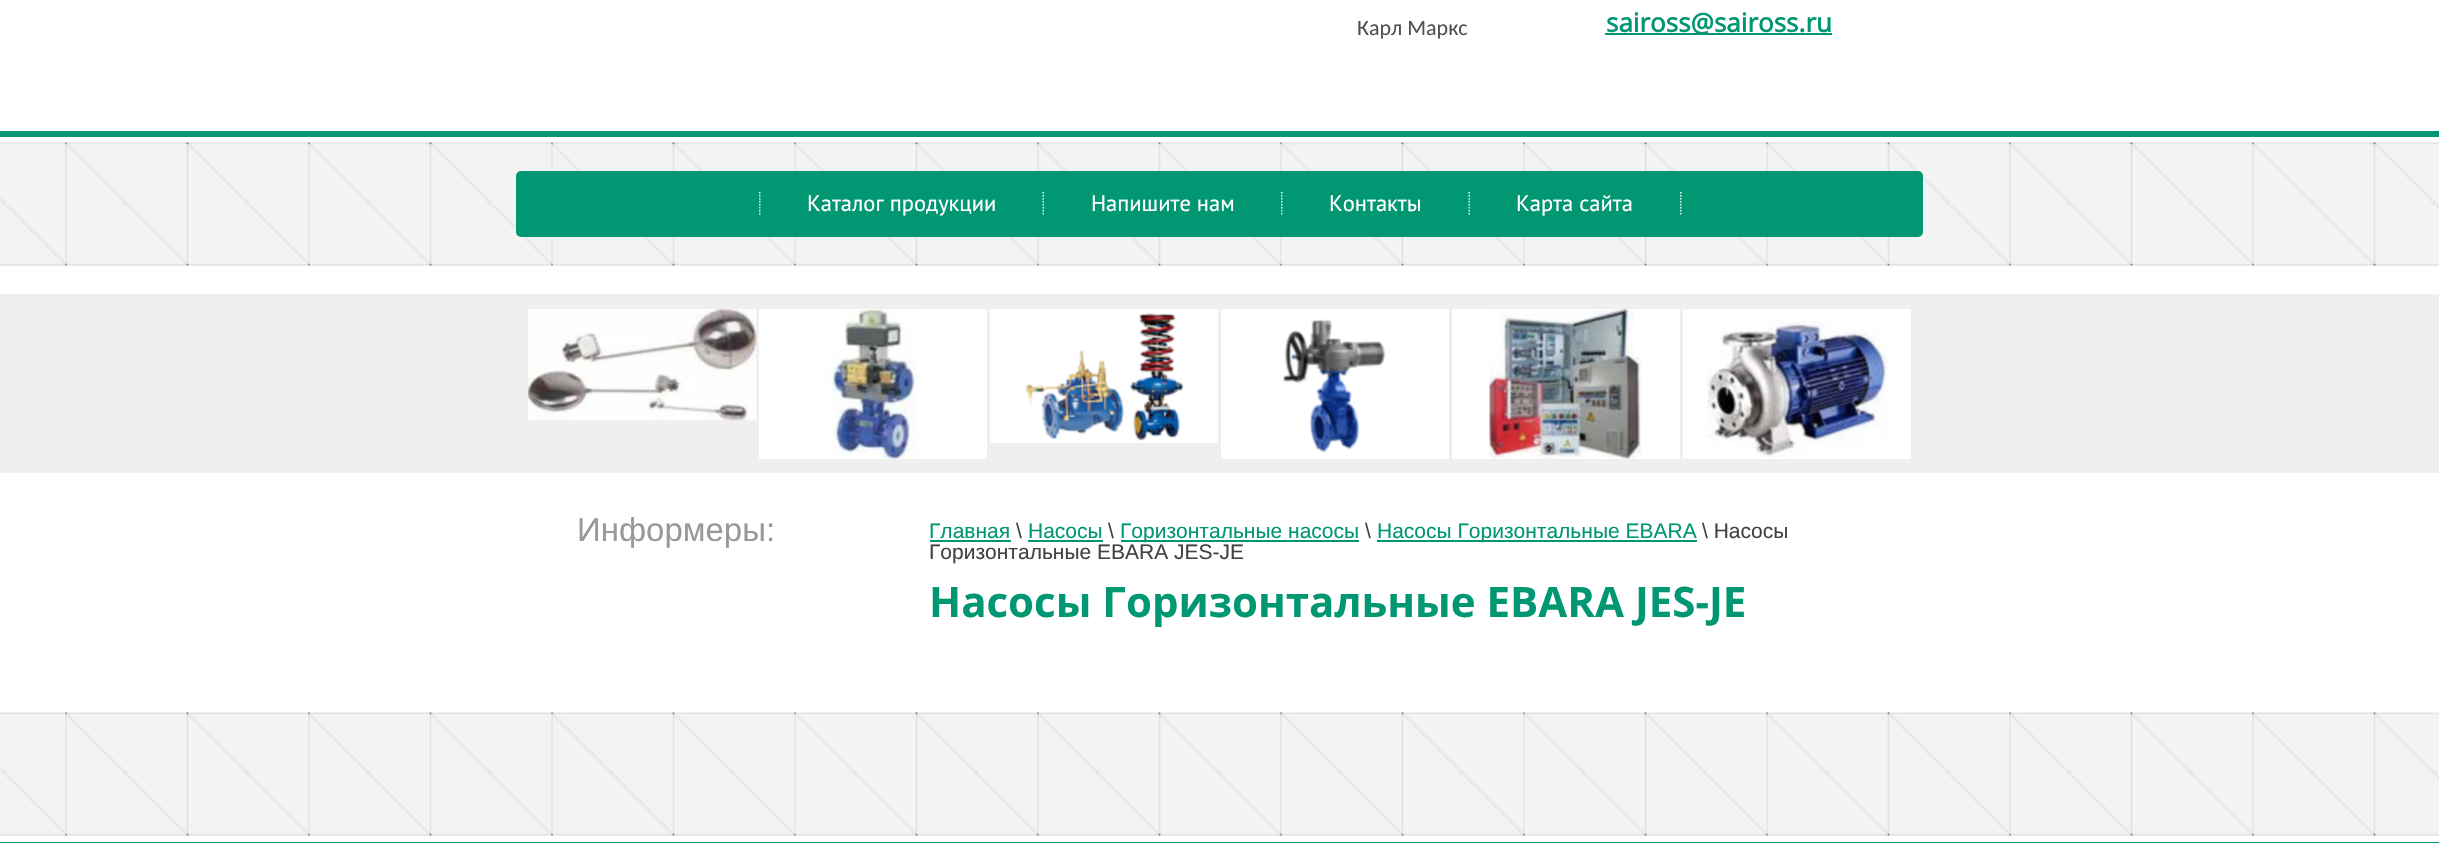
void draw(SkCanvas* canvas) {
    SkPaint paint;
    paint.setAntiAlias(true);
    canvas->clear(0xFFFFFFFF);
    paint.setColor(0xFF009772);
    canvas->drawRect(SkRect::MakeXYWH(0, 131, 2439, 6), paint);
    SkFont font1(fontMgr->matchFamilyStyle("Carlito", SkFontStyle::Normal()), 22);
    font1.setSubpixel(true);
    paint.setColor(0xFF515151);
    canvas->drawString("Карл Маркс", 1357, 35, font1, paint);
    paint.setColor(0xFF009772);
    canvas->drawRect(SkRect::MakeXYWH(1605, 33, 227, 2), paint);
    SkFont font2(fontMgr->matchFamilyStyle("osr", SkFontStyle::Bold()), 26);
    font2.setSubpixel(true);
    canvas->drawString("saiross@saiross.ru", 1606, 32, font2, paint);
    paint.setColor(0xFFF3F3F3);
    canvas->drawRect(SkRect::MakeXYWH(0, 265, 2439, 1), paint);
    canvas->drawImageRect(SkImages::DeferredFromEncodedData(SkData::MakeFromFileName("img1.png")), SkRect::MakeXYWH(0, 142, 2439, 124), SkSamplingOptions());
    paint.setColor(0xFF009772);
    canvas->drawRoundRect(SkRect::MakeXYWH(516, 171, 1407, 66), 5, 5, paint);
    canvas->drawImageRect(SkImages::DeferredFromEncodedData(SkData::MakeFromFileName("img2.png")), SkRect::MakeXYWH(759, 192, 2, 23), SkSamplingOptions());
    SkFont font3(fontMgr->matchFamilyStyle("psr", SkFontStyle::Normal()), 22.5f);
    font3.setSubpixel(true);
    paint.setColor(0xFFFFFFFF);
    canvas->drawString("Каталог продукции", 807, 211, font3, paint);
    canvas->drawImageRect(SkImages::DeferredFromEncodedData(SkData::MakeFromFileName("img3.png")), SkRect::MakeXYWH(1042, 192, 2, 23), SkSamplingOptions());
    canvas->drawString("Напишите нам", 1091, 211, font3, paint);
    canvas->drawImageRect(SkImages::DeferredFromEncodedData(SkData::MakeFromFileName("img2.png")), SkRect::MakeXYWH(1281, 192, 2, 23), SkSamplingOptions());
    canvas->drawString("Контакты", 1329, 211, font3, paint);
    canvas->drawImageRect(SkImages::DeferredFromEncodedData(SkData::MakeFromFileName("img3.png")), SkRect::MakeXYWH(1468, 192, 2, 23), SkSamplingOptions());
    canvas->drawString("Карта сайта", 1516, 211, font3, paint);
    canvas->drawImageRect(SkImages::DeferredFromEncodedData(SkData::MakeFromFileName("img2.png")), SkRect::MakeXYWH(1680, 192, 2, 23), SkSamplingOptions());
    paint.setColor(0xFFEFEFEF);
    canvas->drawRect(SkRect::MakeXYWH(0, 294, 2439, 179), paint);
    paint.setColor(0xFFFFFFFF);
    canvas->drawRect(SkRect::MakeXYWH(528, 309, 228, 111), paint);
    canvas->drawImageRect(SkImages::DeferredFromEncodedData(SkData::MakeFromFileName("img4.png")), SkRect::MakeXYWH(528, 309, 229, 112), SkSamplingOptions());
    canvas->drawRect(SkRect::MakeXYWH(759, 309, 228, 150), paint);
    canvas->drawImageRect(SkImages::DeferredFromEncodedData(SkData::MakeFromFileName("img5.png")), SkRect::MakeXYWH(820, 309, 97, 150), SkSamplingOptions());
    canvas->drawRect(SkRect::MakeXYWH(990, 309, 228, 134), paint);
    canvas->drawImageRect(SkImages::DeferredFromEncodedData(SkData::MakeFromFileName("img6.png")), SkRect::MakeXYWH(1025, 312, 159, 129), SkSamplingOptions());
    canvas->drawRect(SkRect::MakeXYWH(1221, 309, 228, 150), paint);
    canvas->drawImageRect(SkImages::DeferredFromEncodedData(SkData::MakeFromFileName("img7.png")), SkRect::MakeXYWH(1283, 319, 103, 134), SkSamplingOptions());
    canvas->drawRect(SkRect::MakeXYWH(1452, 309, 228, 150), paint);
    canvas->drawImageRect(SkImages::DeferredFromEncodedData(SkData::MakeFromFileName("img8.png")), SkRect::MakeXYWH(1489, 309, 153, 150), SkSamplingOptions());
    canvas->drawRect(SkRect::MakeXYWH(1683, 309, 228, 150), paint);
    canvas->drawImageRect(SkImages::DeferredFromEncodedData(SkData::MakeFromFileName("img9.png")), SkRect::MakeXYWH(1707, 320, 181, 138), SkSamplingOptions());
    SkFont font4(fontMgr->matchFamilyStyle("Liberation Sans", SkFontStyle::Normal()), 33);
    font4.setSubpixel(true);
    paint.setColor(0xFF999999);
    canvas->drawString("Информеры:", 577, 541, font4, paint);
    SkFont font5(fontMgr->matchFamilyStyle("Liberation Sans", SkFontStyle::Normal()), 21);
    font5.setSubpixel(true);
    paint.setColor(0xFF009772);
    canvas->drawString("Главная", 929, 538, font5, paint);
    canvas->drawRect(SkRect::MakeXYWH(930, 540, 81, 2), paint);
    paint.setColor(0xFF424242);
    canvas->drawString("\\", 1016, 538, font5, paint);
    paint.setColor(0xFF009772);
    canvas->drawString("Насосы", 1028, 538, font5, paint);
    canvas->drawRect(SkRect::MakeXYWH(1028, 540, 75, 2), paint);
    paint.setColor(0xFF424242);
    canvas->drawString("\\", 1108, 538, font5, paint);
    paint.setColor(0xFF009772);
    canvas->drawRect(SkRect::MakeXYWH(1121, 540, 238, 2), paint);
    canvas->drawString("Горизонтальные насосы", 1120, 538, font5, paint);
    paint.setColor(0xFF424242);
    canvas->drawString("\\", 1365, 538, font5, paint);
    paint.setColor(0xFF009772);
    canvas->drawRect(SkRect::MakeXYWH(1377, 540, 320, 2), paint);
    canvas->drawString("Насосы Горизонтальные EBARA", 1377, 538, font5, paint);
    paint.setColor(0xFF424242);
    canvas->drawString("\\ Насосы", 1702, 538, font5, paint);
    canvas->drawString("Горизонтальные EBARA JES-JE", 929, 559, font5, paint);
    SkFont font6(fontMgr->matchFamilyStyle("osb", SkFontStyle::Bold()), 42);
    font6.setSubpixel(true);
    paint.setColor(0xFF009772);
    canvas->drawString("Насосы Горизонтальные EBARA JES-JE", 929, 617, font6, paint);
    paint.setColor(0xFFF3F3F3);
    canvas->drawRect(SkRect::MakeXYWH(0, 835, 2439, 1), paint);
    canvas->drawImageRect(SkImages::DeferredFromEncodedData(SkData::MakeFromFileName("img10.png")), SkRect::MakeXYWH(0, 712, 2439, 124), SkSamplingOptions());
    paint.setColor(0xFF009772);
    canvas->drawRect(SkRect::MakeXYWH(0, 842, 2439, 1), paint);
}
